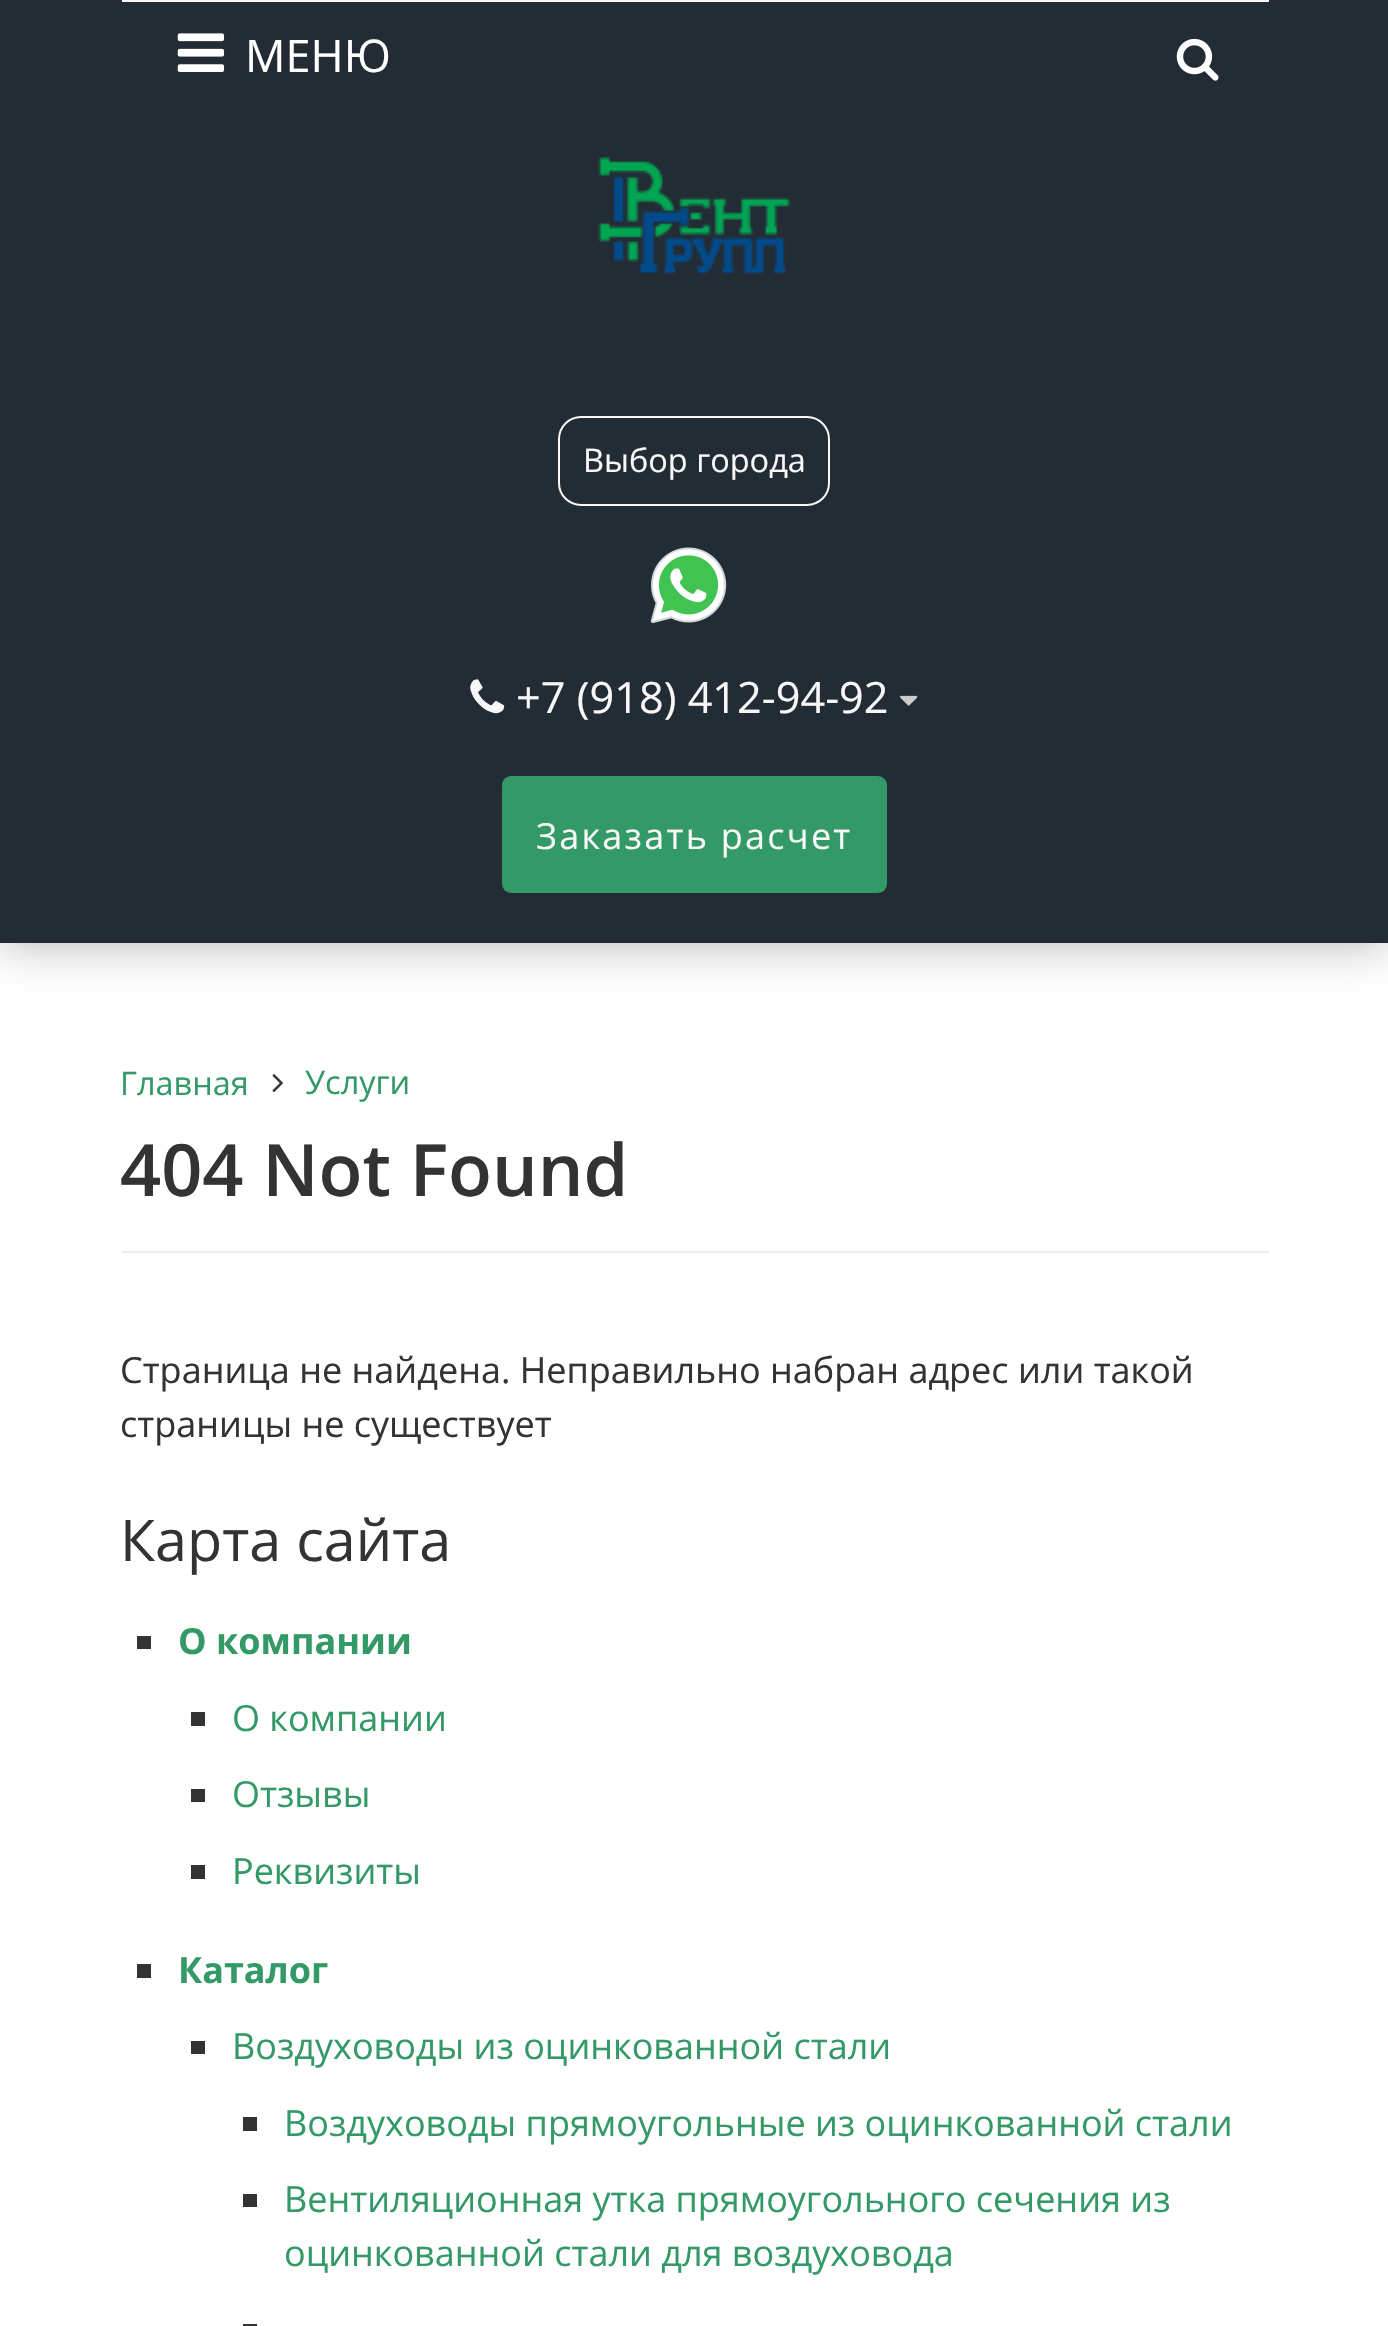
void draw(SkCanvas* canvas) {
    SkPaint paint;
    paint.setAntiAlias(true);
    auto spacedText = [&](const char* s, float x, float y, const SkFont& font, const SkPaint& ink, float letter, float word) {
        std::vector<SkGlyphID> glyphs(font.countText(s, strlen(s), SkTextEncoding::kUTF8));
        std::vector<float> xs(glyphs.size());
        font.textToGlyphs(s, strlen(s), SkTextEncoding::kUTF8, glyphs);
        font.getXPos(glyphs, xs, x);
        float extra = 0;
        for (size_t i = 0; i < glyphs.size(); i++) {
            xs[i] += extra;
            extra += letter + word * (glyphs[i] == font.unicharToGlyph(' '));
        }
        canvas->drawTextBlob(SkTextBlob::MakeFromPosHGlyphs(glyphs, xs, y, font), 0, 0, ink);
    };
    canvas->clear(0xFFFFFFFF);
    paint.setColor(0x4D000000);
    paint.setMaskFilter(SkMaskFilter::MakeBlur(kNormal_SkBlurStyle, 22.5f));
    canvas->drawRect(SkRect::MakeXYWH(0, 0, 1388, 943), paint);
    paint.setMaskFilter(nullptr);
    paint.setColor(0xFF232C35);
    canvas->drawRect(SkRect::MakeXYWH(0, 0, 1388, 943), paint);
    paint.setColor(0xFFF7F7F7);
    canvas->drawRect(SkRect::MakeXYWH(122, 0, 1147, 2), paint);
    canvas->drawImageRect(SkImages::DeferredFromEncodedData(SkData::MakeFromFileName("img1.png")), SkRect::MakeXYWH(177, 33, 48, 39), SkSamplingOptions());
    SkFont font1(fontMgr->matchFamilyStyle("Open Sans", SkFontStyle::Normal()), 45);
    font1.setSubpixel(true);
    paint.setColor(0xFFFFFFFF);
    canvas->drawString("МЕНЮ", 245, 72, font1, paint);
    canvas->drawImageRect(SkImages::DeferredFromEncodedData(SkData::MakeFromFileName("img2.png")), SkRect::MakeXYWH(1176, 38, 43, 43), SkSamplingOptions());
    canvas->drawImageRect(SkImages::DeferredFromEncodedData(SkData::MakeFromFileName("img3.png")), SkRect::MakeXYWH(598, 156, 193, 119), SkSamplingOptions());
    paint.setStyle(SkPaint::kStroke_Style);
    paint.setStrokeWidth(2);
    paint.setColor(0xFFF7F7F7);
    canvas->drawRoundRect(SkRect::MakeXYWH(559, 417, 270, 88), 22, 22, paint);
    SkFont font2(fontMgr->matchFamilyStyle("Open Sans", SkFontStyle::Normal()), 32.5f);
    font2.setSubpixel(true);
    paint.setStyle(SkPaint::kFill_Style);
    canvas->drawString("Выбор города", 583, 472, font2, paint);
    canvas->drawImageRect(SkImages::DeferredFromEncodedData(SkData::MakeFromFileName("img4.png")), SkRect::MakeXYWH(650, 547, 77, 77), SkSamplingOptions());
    canvas->drawImageRect(SkImages::DeferredFromEncodedData(SkData::MakeFromFileName("img5.png")), SkRect::MakeXYWH(470, 679, 35, 35), SkSamplingOptions());
    SkFont font3(fontMgr->matchFamilyStyle("Open Sans", SkFontStyle::Normal()), 43.25f);
    font3.setSubpixel(true);
    canvas->drawString("+7 (918) 412-94-92", 516, 713, font3, paint);
    canvas->drawImageRect(SkImages::DeferredFromEncodedData(SkData::MakeFromFileName("img6.png")), SkRect::MakeXYWH(900, 695, 18, 11), SkSamplingOptions());
    paint.setColor(0xFF339966);
    canvas->drawRoundRect(SkRect::MakeXYWH(502, 776, 385, 117), 9, 9, paint);
    SkFont font4(fontMgr->matchFamilyStyle("Open Sans", SkFontStyle::Normal()), 36);
    font4.setSubpixel(true);
    paint.setColor(0xFFF7F7F7);
    spacedText("Заказать расчет", 536, 849, font4, paint, 2.25f, 0);
    paint.setColor(0xFF339966);
    canvas->drawString("Главная", 120, 1095, font2, paint);
    canvas->drawImageRect(SkImages::DeferredFromEncodedData(SkData::MakeFromFileName("img7.png")), SkRect::MakeXYWH(272, 1074, 11, 18), SkSamplingOptions());
    canvas->drawString("Услуги", 305, 1094, font2, paint);
    paint.setColor(0xFFECECEC);
    canvas->drawRect(SkRect::MakeXYWH(122, 1251, 1147, 2), paint);
    SkFont font5(fontMgr->matchFamilyStyle("Open Sans", SkFontStyle(600, SkFontStyle::kNormal_Width, SkFontStyle::kUpright_Slant)), 72);
    font5.setSubpixel(true);
    paint.setColor(0xFF333333);
    canvas->drawString("404 Not Found", 120, 1196, font5, paint);
    canvas->drawString("Страница не найдена. Неправильно набран адрес или такой", 120, 1383, font4, paint);
    canvas->drawString("страницы не существует", 120, 1437, font4, paint);
    SkFont font6(fontMgr->matchFamilyStyle("Open Sans", SkFontStyle::Normal()), 57.5f);
    font6.setSubpixel(true);
    canvas->drawString("Карта сайта", 120, 1561, font6, paint);
    canvas->drawRect(SkRect::MakeXYWH(137, 1636, 14, 13), paint);
    SkFont font7(fontMgr->matchFamilyStyle("Open Sans", SkFontStyle::Bold()), 36);
    font7.setSubpixel(true);
    paint.setColor(0xFF339966);
    canvas->drawString("О компании", 178, 1654, font7, paint);
    paint.setColor(0xFF333333);
    canvas->drawRect(SkRect::MakeXYWH(191, 1712, 14, 14), paint);
    paint.setColor(0xFF339966);
    canvas->drawString("О компании", 232, 1731, font4, paint);
    paint.setColor(0xFF333333);
    canvas->drawRect(SkRect::MakeXYWH(191, 1789, 14, 13), paint);
    paint.setColor(0xFF339966);
    canvas->drawString("Отзывы", 232, 1807, font4, paint);
    paint.setColor(0xFF333333);
    canvas->drawRect(SkRect::MakeXYWH(191, 1865, 14, 14), paint);
    paint.setColor(0xFF339966);
    canvas->drawString("Реквизиты", 232, 1884, font4, paint);
    paint.setColor(0xFF333333);
    canvas->drawRect(SkRect::MakeXYWH(137, 1964, 14, 14), paint);
    paint.setColor(0xFF339966);
    canvas->drawString("Каталог", 178, 1983, font7, paint);
    paint.setColor(0xFF333333);
    canvas->drawRect(SkRect::MakeXYWH(191, 2041, 14, 13), paint);
    paint.setColor(0xFF339966);
    canvas->drawString("Воздуховоды из оцинкованной стали", 232, 2059, font4, paint);
    paint.setColor(0xFF333333);
    canvas->drawRect(SkRect::MakeXYWH(243, 2117, 14, 14), paint);
    paint.setColor(0xFF339966);
    canvas->drawString("Воздуховоды прямоугольные из оцинкованной стали", 284, 2136, font4, paint);
    paint.setColor(0xFF333333);
    canvas->drawRect(SkRect::MakeXYWH(243, 2194, 14, 13), paint);
    paint.setColor(0xFF339966);
    canvas->drawString("Вентиляционная утка прямоугольного сечения из", 284, 2212, font4, paint);
    canvas->drawString("оцинкованной стали для воздуховода", 284, 2266, font4, paint);
    paint.setColor(0xFF333333);
    canvas->drawRect(SkRect::MakeXYWH(243, 2324, 14, 2), paint);
}
